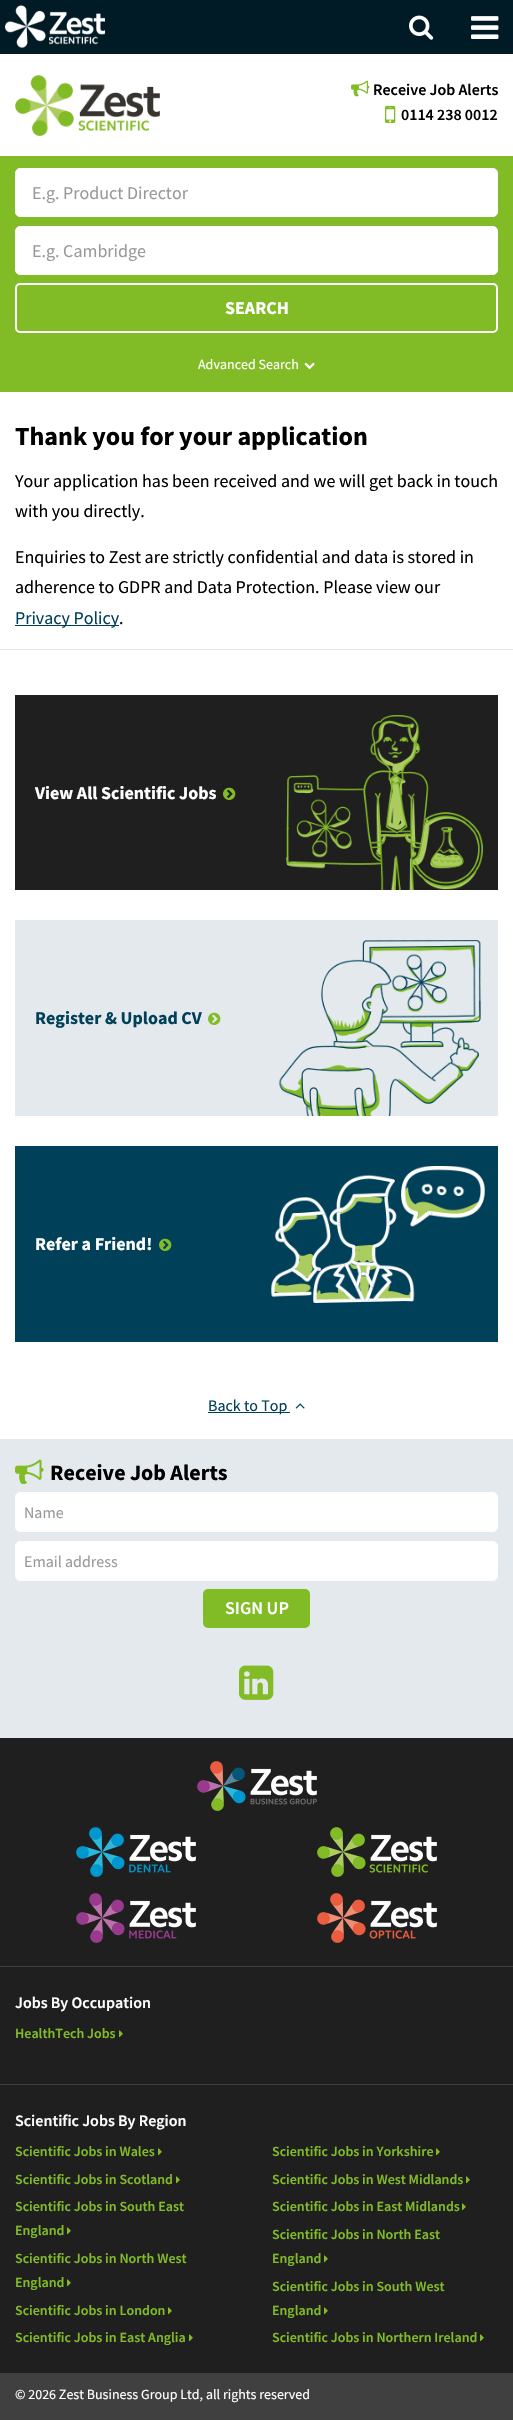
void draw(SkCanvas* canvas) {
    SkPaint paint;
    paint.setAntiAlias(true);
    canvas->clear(0xFF404041);
    paint.setColor(0xFFFFFFFF);
    canvas->drawRect(SkRect::MakeXYWH(0, 54, 513, 102), paint);
    paint.setColor(0xFF001B26);
    canvas->drawRect(SkRect::MakeXYWH(0, 0, 513, 54), paint);
    canvas->drawImageRect(SkImages::DeferredFromEncodedData(SkData::MakeFromFileName("img1.png")), SkRect::MakeXYWH(5, 5, 100, 43), SkSamplingOptions());
    canvas->drawImageRect(SkImages::DeferredFromEncodedData(SkData::MakeFromFileName("img2.png")), SkRect::MakeXYWH(409, 15, 25, 25), SkSamplingOptions());
    canvas->drawImageRect(SkImages::DeferredFromEncodedData(SkData::MakeFromFileName("img3.png")), SkRect::MakeXYWH(471, 16, 28, 23), SkSamplingOptions());
    canvas->drawImageRect(SkImages::DeferredFromEncodedData(SkData::MakeFromFileName("img4.png")), SkRect::MakeXYWH(15, 75, 145, 61), SkSamplingOptions());
    canvas->drawImageRect(SkImages::DeferredFromEncodedData(SkData::MakeFromFileName("img5.png")), SkRect::MakeXYWH(351, 80, 19, 17), SkSamplingOptions());
    SkFont font1(fontMgr->matchFamilyStyle("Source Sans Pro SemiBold", SkFontStyle(600, SkFontStyle::kNormal_Width, SkFontStyle::kUpright_Slant)), 16);
    font1.setSubpixel(true);
    paint.setColor(0xFF000000);
    canvas->drawString("Receive Job Alerts", 373, 95, font1, paint);
    canvas->drawImageRect(SkImages::DeferredFromEncodedData(SkData::MakeFromFileName("img6.png")), SkRect::MakeXYWH(385, 105, 11, 18), SkSamplingOptions());
    canvas->drawString("0114 238 0012", 401, 120, font1, paint);
    paint.setColor(0xFFFFFFFF);
    canvas->drawRect(SkRect::MakeXYWH(0, 392, 513, 257), paint);
    paint.setColor(0xFF81BC26);
    canvas->drawRect(SkRect::MakeXYWH(0, 156, 513, 236), paint);
    paint.setColor(0xFFFFFFFF);
    canvas->drawRoundRect(SkRect::MakeXYWH(15.5f, 168.5f, 482, 48), 4.5f, 4.5f, paint);
    paint.setStyle(SkPaint::kStroke_Style);
    paint.setStrokeWidth(1);
    canvas->drawRoundRect(SkRect::MakeXYWH(15.5f, 168.5f, 482, 48), 4.5f, 4.5f, paint);
    SkFont font2(fontMgr->matchFamilyStyle("Source Sans Pro", SkFontStyle::Normal()), 18);
    font2.setSubpixel(true);
    paint.setStyle(SkPaint::kFill_Style);
    paint.setColor(0xFF999999);
    canvas->drawString("E.g. Product Director", 32, 199, font2, paint);
    paint.setColor(0xFFFFFFFF);
    canvas->drawRoundRect(SkRect::MakeXYWH(15.5f, 226.5f, 482, 48), 4.5f, 4.5f, paint);
    paint.setStyle(SkPaint::kStroke_Style);
    canvas->drawRoundRect(SkRect::MakeXYWH(15.5f, 226.5f, 482, 48), 4.5f, 4.5f, paint);
    paint.setStyle(SkPaint::kFill_Style);
    paint.setColor(0xFF999999);
    canvas->drawString("E.g. Cambridge", 32, 257, font2, paint);
    paint.setStyle(SkPaint::kStroke_Style);
    paint.setStrokeWidth(2);
    paint.setColor(0xFFFFFFFF);
    canvas->drawRoundRect(SkRect::MakeXYWH(16, 284, 481, 48), 4, 4, paint);
    SkFont font3(fontMgr->matchFamilyStyle("Source Sans Pro", SkFontStyle::Bold()), 18);
    font3.setSubpixel(true);
    paint.setStyle(SkPaint::kFill_Style);
    canvas->drawString("SEARCH", 225, 314, font3, paint);
    SkFont font4(fontMgr->matchFamilyStyle("Source Sans Pro", SkFontStyle::Normal()), 14);
    font4.setSubpixel(true);
    canvas->drawString("Advanced Search", 198, 369, font4, paint);
    canvas->drawImageRect(SkImages::DeferredFromEncodedData(SkData::MakeFromFileName("img7.png")), SkRect::MakeXYWH(304, 362, 11, 8), SkSamplingOptions());
    SkFont font5(fontMgr->matchFamilyStyle("Source Sans Pro", SkFontStyle::Bold()), 26);
    font5.setSubpixel(true);
    paint.setColor(0xFF000000);
    canvas->drawString("Thank you for your application", 15, 445, font5, paint);
    canvas->drawString("Your application has been received and we will get back in touch", 15, 487, font2, paint);
    canvas->drawString("with you directly.", 15, 517, font2, paint);
    canvas->drawString("Enquiries to Zest are strictly confidential and data is stored in", 15, 563, font2, paint);
    canvas->drawString("adherence to GDPR and Data Protection. Please view our", 15, 593, font2, paint);
    paint.setColor(0xFF004059);
    canvas->drawRect(SkRect::MakeXYWH(15, 625, 104, 1), paint);
    canvas->drawString("Privacy Policy", 15, 624, font2, paint);
    paint.setColor(0xFF000000);
    canvas->drawString(".", 119, 624, font2, paint);
    paint.setColor(0xFFE3E9EC);
    canvas->drawRect(SkRect::MakeXYWH(0, 649, 513, 1), paint);
    paint.setColor(0xFFFFFFFF);
    canvas->drawRect(SkRect::MakeXYWH(0, 650, 513, 789), paint);
    paint.setColor(0xFF1F1F20);
    canvas->drawRect(SkRect::MakeXYWH(15, 695, 483, 195), paint);
    paint.setColor(0xFFFFFFFF);
    canvas->drawString("View All Scientific Jobs", 35, 799, font3, paint);
    canvas->drawImageRect(SkImages::DeferredFromEncodedData(SkData::MakeFromFileName("img8.png")), SkRect::MakeXYWH(223, 787, 13, 13), SkSamplingOptions());
    canvas->drawImageRect(SkImages::DeferredFromEncodedData(SkData::MakeFromFileName("img9.png")), SkRect::MakeXYWH(286, 715, 197, 175), SkSamplingOptions());
    paint.setColor(0xFFE3E9EC);
    canvas->drawRect(SkRect::MakeXYWH(15, 920, 483, 196), paint);
    paint.setColor(0xFF004059);
    canvas->drawString("Register & Upload CV", 35, 1024, font3, paint);
    canvas->drawImageRect(SkImages::DeferredFromEncodedData(SkData::MakeFromFileName("img10.png")), SkRect::MakeXYWH(208, 1012, 13, 13), SkSamplingOptions());
    canvas->drawImageRect(SkImages::DeferredFromEncodedData(SkData::MakeFromFileName("img11.png")), SkRect::MakeXYWH(279, 940, 202, 176), SkSamplingOptions());
    canvas->drawRect(SkRect::MakeXYWH(15, 1146, 483, 196), paint);
    paint.setColor(0xFFFFFFFF);
    canvas->drawString("Refer a Friend!", 35, 1250, font3, paint);
    canvas->drawImageRect(SkImages::DeferredFromEncodedData(SkData::MakeFromFileName("img12.png")), SkRect::MakeXYWH(159, 1238, 13, 13), SkSamplingOptions());
    canvas->drawImageRect(SkImages::DeferredFromEncodedData(SkData::MakeFromFileName("img13.png")), SkRect::MakeXYWH(271, 1166, 214, 137), SkSamplingOptions());
    paint.setColor(0xFF004059);
    canvas->drawRect(SkRect::MakeXYWH(208, 1412, 82, 1), paint);
    SkFont font6(fontMgr->matchFamilyStyle("Source Sans Pro", SkFontStyle::Normal()), 16);
    font6.setSubpixel(true);
    canvas->drawString("Back to Top", 208, 1411, font6, paint);
    canvas->drawImageRect(SkImages::DeferredFromEncodedData(SkData::MakeFromFileName("img14.png")), SkRect::MakeXYWH(295, 1403, 10, 6), SkSamplingOptions());
    paint.setColor(0xFFE3E9EC);
    canvas->drawRect(SkRect::MakeXYWH(0, 1439, 513, 299), paint);
    canvas->drawImageRect(SkImages::DeferredFromEncodedData(SkData::MakeFromFileName("img15.png")), SkRect::MakeXYWH(15, 1459, 29, 25), SkSamplingOptions());
    SkFont font7(fontMgr->matchFamilyStyle("Source Sans Pro", SkFontStyle::Bold()), 22);
    font7.setSubpixel(true);
    paint.setColor(0xFF000000);
    canvas->drawString("Receive Job Alerts", 50, 1480, font7, paint);
    paint.setColor(0xFFFFFFFF);
    canvas->drawRoundRect(SkRect::MakeXYWH(15.5f, 1492.5f, 482, 39), 4.5f, 4.5f, paint);
    paint.setStyle(SkPaint::kStroke_Style);
    paint.setStrokeWidth(1);
    canvas->drawRoundRect(SkRect::MakeXYWH(15.5f, 1492.5f, 482, 39), 4.5f, 4.5f, paint);
    paint.setStyle(SkPaint::kFill_Style);
    paint.setColor(0xFF999999);
    canvas->drawString("Name", 24, 1518, font6, paint);
    paint.setColor(0xFFFFFFFF);
    canvas->drawRoundRect(SkRect::MakeXYWH(15.5f, 1541.5f, 482, 39), 4.5f, 4.5f, paint);
    paint.setStyle(SkPaint::kStroke_Style);
    canvas->drawRoundRect(SkRect::MakeXYWH(15.5f, 1541.5f, 482, 39), 4.5f, 4.5f, paint);
    paint.setStyle(SkPaint::kFill_Style);
    paint.setColor(0xFF999999);
    canvas->drawString("Email address", 24, 1567, font6, paint);
    paint.setColor(0xFF81BC26);
    canvas->drawRoundRect(SkRect::MakeXYWH(204, 1590, 105, 37), 4, 4, paint);
    paint.setStyle(SkPaint::kStroke_Style);
    paint.setStrokeWidth(2);
    canvas->drawRoundRect(SkRect::MakeXYWH(204, 1590, 105, 37), 4, 4, paint);
    SkFont font8(fontMgr->matchFamilyStyle("Source Sans Pro SemiBold", SkFontStyle(600, SkFontStyle::kNormal_Width, SkFontStyle::kUpright_Slant)), 18);
    font8.setSubpixel(true);
    paint.setStyle(SkPaint::kFill_Style);
    paint.setColor(0xFFFFFFFF);
    canvas->drawString("SIGN UP", 225, 1614, font8, paint);
    canvas->drawImageRect(SkImages::DeferredFromEncodedData(SkData::MakeFromFileName("img16.png")), SkRect::MakeXYWH(239, 1665, 35, 35), SkSamplingOptions());
    paint.setColor(0xFF1F1F20);
    canvas->drawRect(SkRect::MakeXYWH(0, 1738, 513, 635), paint);
    canvas->drawImageRect(SkImages::DeferredFromEncodedData(SkData::MakeFromFileName("img17.png")), SkRect::MakeXYWH(197, 1761, 120, 50), SkSamplingOptions());
    canvas->drawImageRect(SkImages::DeferredFromEncodedData(SkData::MakeFromFileName("img18.png")), SkRect::MakeXYWH(76, 1827, 120, 50), SkSamplingOptions());
    canvas->drawImageRect(SkImages::DeferredFromEncodedData(SkData::MakeFromFileName("img19.png")), SkRect::MakeXYWH(317, 1827, 120, 50), SkSamplingOptions());
    canvas->drawImageRect(SkImages::DeferredFromEncodedData(SkData::MakeFromFileName("img20.png")), SkRect::MakeXYWH(76, 1893, 120, 50), SkSamplingOptions());
    canvas->drawImageRect(SkImages::DeferredFromEncodedData(SkData::MakeFromFileName("img21.png")), SkRect::MakeXYWH(317, 1893, 120, 50), SkSamplingOptions());
    paint.setColor(0xFF404041);
    canvas->drawRect(SkRect::MakeXYWH(0, 1966, 513, 1), paint);
    paint.setColor(0xFFFFFFFF);
    canvas->drawString("Jobs By Occupation", 15, 2008, font1, paint);
    SkFont font9(fontMgr->matchFamilyStyle("Source Sans Pro SemiBold", SkFontStyle(600, SkFontStyle::kNormal_Width, SkFontStyle::kUpright_Slant)), 14);
    font9.setSubpixel(true);
    paint.setColor(0xFF81BC26);
    canvas->drawString("HealthTech Jobs", 15, 2038, font9, paint);
    canvas->drawImageRect(SkImages::DeferredFromEncodedData(SkData::MakeFromFileName("img22.png")), SkRect::MakeXYWH(119, 2030, 4, 8), SkSamplingOptions());
    paint.setColor(0xFF404041);
    canvas->drawRect(SkRect::MakeXYWH(0, 2084, 513, 1), paint);
    paint.setColor(0xFFFFFFFF);
    canvas->drawString("Scientific Jobs By Region", 15, 2126, font1, paint);
    paint.setColor(0xFF81BC26);
    canvas->drawString("Scientific Jobs in Wales", 15, 2156, font9, paint);
    canvas->drawImageRect(SkImages::DeferredFromEncodedData(SkData::MakeFromFileName("img22.png")), SkRect::MakeXYWH(158, 2148, 4, 8), SkSamplingOptions());
    canvas->drawString("Scientific Jobs in Yorkshire", 272, 2156, font9, paint);
    canvas->drawImageRect(SkImages::DeferredFromEncodedData(SkData::MakeFromFileName("img22.png")), SkRect::MakeXYWH(436, 2148, 4, 8), SkSamplingOptions());
    canvas->drawString("Scientific Jobs in Scotland", 15, 2184, font9, paint);
    canvas->drawImageRect(SkImages::DeferredFromEncodedData(SkData::MakeFromFileName("img22.png")), SkRect::MakeXYWH(176, 2176, 4, 8), SkSamplingOptions());
    canvas->drawString("Scientific Jobs in West Midlands", 272, 2184, font9, paint);
    canvas->drawImageRect(SkImages::DeferredFromEncodedData(SkData::MakeFromFileName("img22.png")), SkRect::MakeXYWH(466, 2176, 4, 8), SkSamplingOptions());
    canvas->drawString("Scientific Jobs in South East", 15, 2211, font9, paint);
    canvas->drawString("England", 15, 2235, font9, paint);
    canvas->drawImageRect(SkImages::DeferredFromEncodedData(SkData::MakeFromFileName("img22.png")), SkRect::MakeXYWH(67, 2227, 4, 8), SkSamplingOptions());
    canvas->drawString("Scientific Jobs in East Midlands", 272, 2211, font9, paint);
    canvas->drawImageRect(SkImages::DeferredFromEncodedData(SkData::MakeFromFileName("img22.png")), SkRect::MakeXYWH(462, 2203, 4, 8), SkSamplingOptions());
    canvas->drawString("Scientific Jobs in North East", 272, 2239, font9, paint);
    canvas->drawString("England", 272, 2263, font9, paint);
    canvas->drawImageRect(SkImages::DeferredFromEncodedData(SkData::MakeFromFileName("img22.png")), SkRect::MakeXYWH(324, 2255, 4, 8), SkSamplingOptions());
    canvas->drawString("Scientific Jobs in North West", 15, 2263, font9, paint);
    canvas->drawString("England", 15, 2287, font9, paint);
    canvas->drawImageRect(SkImages::DeferredFromEncodedData(SkData::MakeFromFileName("img22.png")), SkRect::MakeXYWH(67, 2279, 4, 8), SkSamplingOptions());
    canvas->drawString("Scientific Jobs in London", 15, 2315, font9, paint);
    canvas->drawImageRect(SkImages::DeferredFromEncodedData(SkData::MakeFromFileName("img22.png")), SkRect::MakeXYWH(168, 2307, 4, 8), SkSamplingOptions());
    canvas->drawString("Scientific Jobs in South West", 272, 2291, font9, paint);
    canvas->drawString("England", 272, 2315, font9, paint);
    canvas->drawImageRect(SkImages::DeferredFromEncodedData(SkData::MakeFromFileName("img22.png")), SkRect::MakeXYWH(324, 2307, 4, 8), SkSamplingOptions());
    canvas->drawString("Scientific Jobs in East Anglia", 15, 2342, font9, paint);
    canvas->drawImageRect(SkImages::DeferredFromEncodedData(SkData::MakeFromFileName("img22.png")), SkRect::MakeXYWH(189, 2334, 4, 8), SkSamplingOptions());
    canvas->drawString("Scientific Jobs in Northern Ireland", 272, 2342, font9, paint);
    canvas->drawImageRect(SkImages::DeferredFromEncodedData(SkData::MakeFromFileName("img22.png")), SkRect::MakeXYWH(480, 2334, 4, 8), SkSamplingOptions());
    paint.setColor(0xFFFFFFFF);
    canvas->drawString("© 2026 Zest Business Group Ltd, all rights reserved", 15, 2399, font4, paint);
}
